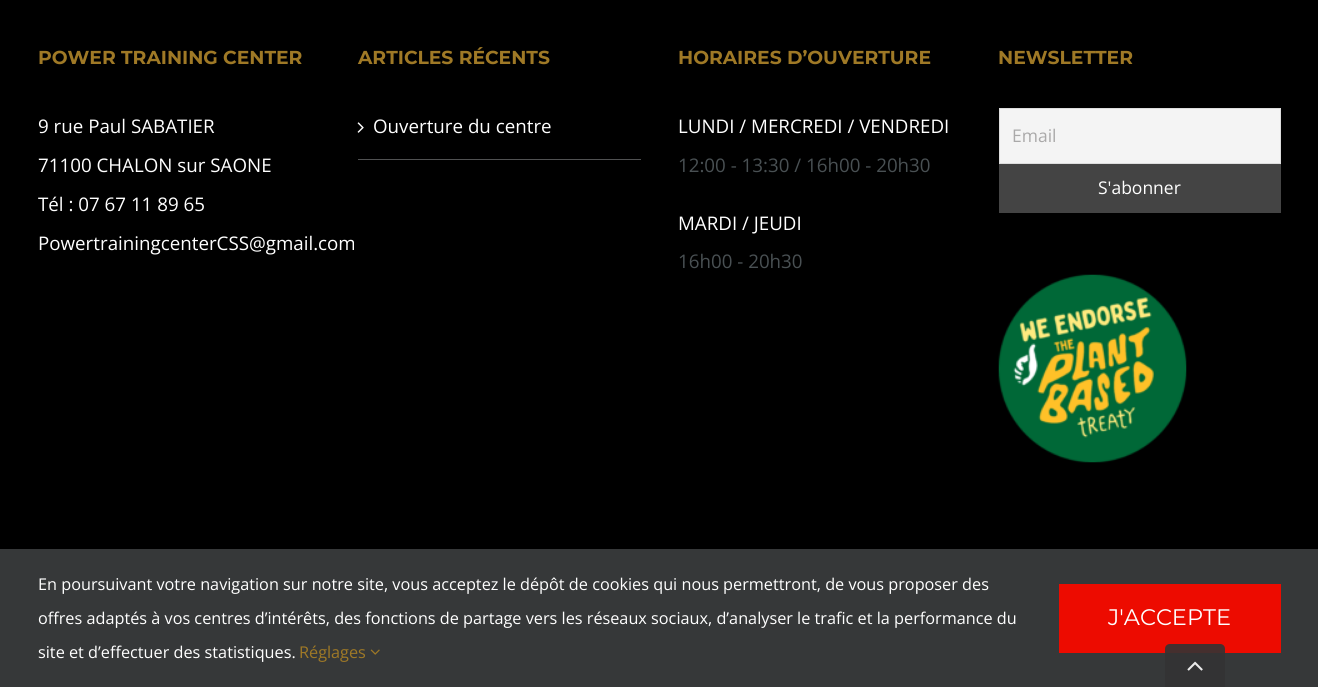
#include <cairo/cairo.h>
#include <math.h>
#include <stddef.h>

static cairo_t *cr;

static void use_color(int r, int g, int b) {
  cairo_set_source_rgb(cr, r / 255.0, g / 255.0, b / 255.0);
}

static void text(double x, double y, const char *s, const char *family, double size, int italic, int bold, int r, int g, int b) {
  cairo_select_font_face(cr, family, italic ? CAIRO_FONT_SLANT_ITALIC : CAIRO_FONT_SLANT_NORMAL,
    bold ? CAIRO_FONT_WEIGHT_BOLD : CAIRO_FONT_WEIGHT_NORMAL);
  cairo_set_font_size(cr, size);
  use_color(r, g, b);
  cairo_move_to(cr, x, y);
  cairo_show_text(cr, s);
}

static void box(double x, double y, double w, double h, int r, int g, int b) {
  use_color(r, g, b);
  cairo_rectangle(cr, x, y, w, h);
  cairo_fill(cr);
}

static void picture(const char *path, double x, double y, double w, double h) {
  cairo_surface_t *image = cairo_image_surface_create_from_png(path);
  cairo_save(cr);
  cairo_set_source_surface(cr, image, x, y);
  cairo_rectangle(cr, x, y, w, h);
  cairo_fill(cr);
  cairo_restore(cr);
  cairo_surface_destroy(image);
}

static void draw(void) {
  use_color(0, 0, 0);
  cairo_paint(cr);
  box(358, 159, 283, 1, 80, 81, 82);
  picture("img_01.png", 357, 122, 7, 11);
  use_color(244, 244, 244);
  cairo_rectangle(cr, 999.5, 108.5, 281, 55);
  cairo_fill_preserve(cr);
  use_color(221, 221, 221);
  cairo_set_line_width(cr, 1);
  cairo_stroke(cr);
  box(999, 164, 282, 49, 68, 68, 68);
  picture("img_02.png", 998, 274, 189, 189);
  box(0, 549, 1318, 138, 54, 56, 57);
  picture("img_03.png", 370, 649, 10, 6);
  box(1059, 584, 222, 69, 237, 11, 0);
  cairo_set_source_rgba(cr, 0.2, 0.2, 0.2, 0.9);
  cairo_new_path(cr);
  cairo_move_to(cr, 1170, 644);
  cairo_line_to(cr, 1220, 644);
  cairo_curve_to(cr, 1223, 644, 1225, 646, 1225, 649);
  cairo_line_to(cr, 1225, 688);
  cairo_line_to(cr, 1165, 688);
  cairo_line_to(cr, 1165, 649);
  cairo_curve_to(cr, 1165, 646, 1167, 644, 1170, 644);
  cairo_close_path(cr);
  cairo_fill(cr);
  picture("img_04.png", 1187, 661, 16, 10);
  text(38, 64, "POWER TRAINING CENTER", "Montserrat", 18.75, 0, 1, 159, 121, 38);
  text(38, 133, "9 rue Paul SABATIER", "Open Sans", 18.75, 0, 0, 255, 255, 255);
  text(38, 172, "71100 CHALON sur SAONE", "Open Sans", 18.75, 0, 0, 255, 255, 255);
  text(38, 211, "Tél : 07 67 11 89 65", "Open Sans", 18.75, 0, 0, 255, 255, 255);
  text(38, 250, "PowertrainingcenterCSS@gmail.com", "Open Sans", 18.75, 0, 0, 255, 255, 255);
  text(358, 64, "ARTICLES RÉCENTS", "Montserrat", 18.75, 0, 1, 159, 121, 38);
  text(373, 133, "Ouverture du centre", "Open Sans", 18.75, 0, 0, 255, 255, 255);
  text(678, 64, "HORAIRES D’OUVERTURE", "Montserrat", 18.75, 0, 1, 159, 121, 38);
  text(678, 133, "LUNDI / MERCREDI / VENDREDI", "Open Sans", 18.75, 0, 0, 255, 255, 255);
  text(678, 172, "12:00 - 13:30 / 16h00 - 20h30", "Open Sans", 18.75, 0, 0, 73, 80, 83);
  text(678, 230, "MARDI / JEUDI", "Open Sans", 18.75, 0, 0, 255, 255, 255);
  text(678, 268, "16h00 - 20h30", "Open Sans", 18.75, 0, 0, 73, 80, 83);
  text(998, 64, "NEWSLETTER", "Montserrat", 18.75, 0, 1, 159, 121, 38);
  text(1012, 142, "Email", "Open Sans", 17.5, 0, 0, 170, 169, 169);
  text(1098, 194, "S'abonner", "Open Sans", 17.5, 0, 0, 255, 255, 255);
  text(38, 590, "En poursuivant votre navigation sur notre site, vous acceptez le dépôt de cookies qui nous permettront, de vous proposer des", "Open Sans", 16.25, 0, 0, 255, 255, 255);
  text(38, 624, "offres adaptés à vos centres d’intérêts, des fonctions de partage vers les réseaux sociaux, d’analyser le trafic et la performance du", "Open Sans", 16.25, 0, 0, 255, 255, 255);
  text(38, 658, "site et d’effectuer des statistiques.", "Open Sans", 16.25, 0, 0, 255, 255, 255);
  text(299, 658, "Réglages", "Open Sans", 16.25, 0, 0, 159, 121, 38);
  text(1108, 625, "J'ACCEPTE", "Montserrat", 22.5, 0, 0, 255, 255, 255);
}

int main(void) {
  cairo_surface_t *surface = cairo_image_surface_create(CAIRO_FORMAT_RGB24, 1318, 687);
  cr = cairo_create(surface);
  cairo_font_options_t *options = cairo_font_options_create();
  cairo_font_options_set_hint_metrics(options, CAIRO_HINT_METRICS_OFF);
  cairo_font_options_set_hint_style(options, CAIRO_HINT_STYLE_NONE);
  cairo_set_font_options(cr, options);
  cairo_set_miter_limit(cr, 4);
  draw();
  cairo_surface_write_to_png(surface, "out.png");
  cairo_font_options_destroy(options);
  cairo_destroy(cr);
  cairo_surface_destroy(surface);
  return 0;
}
